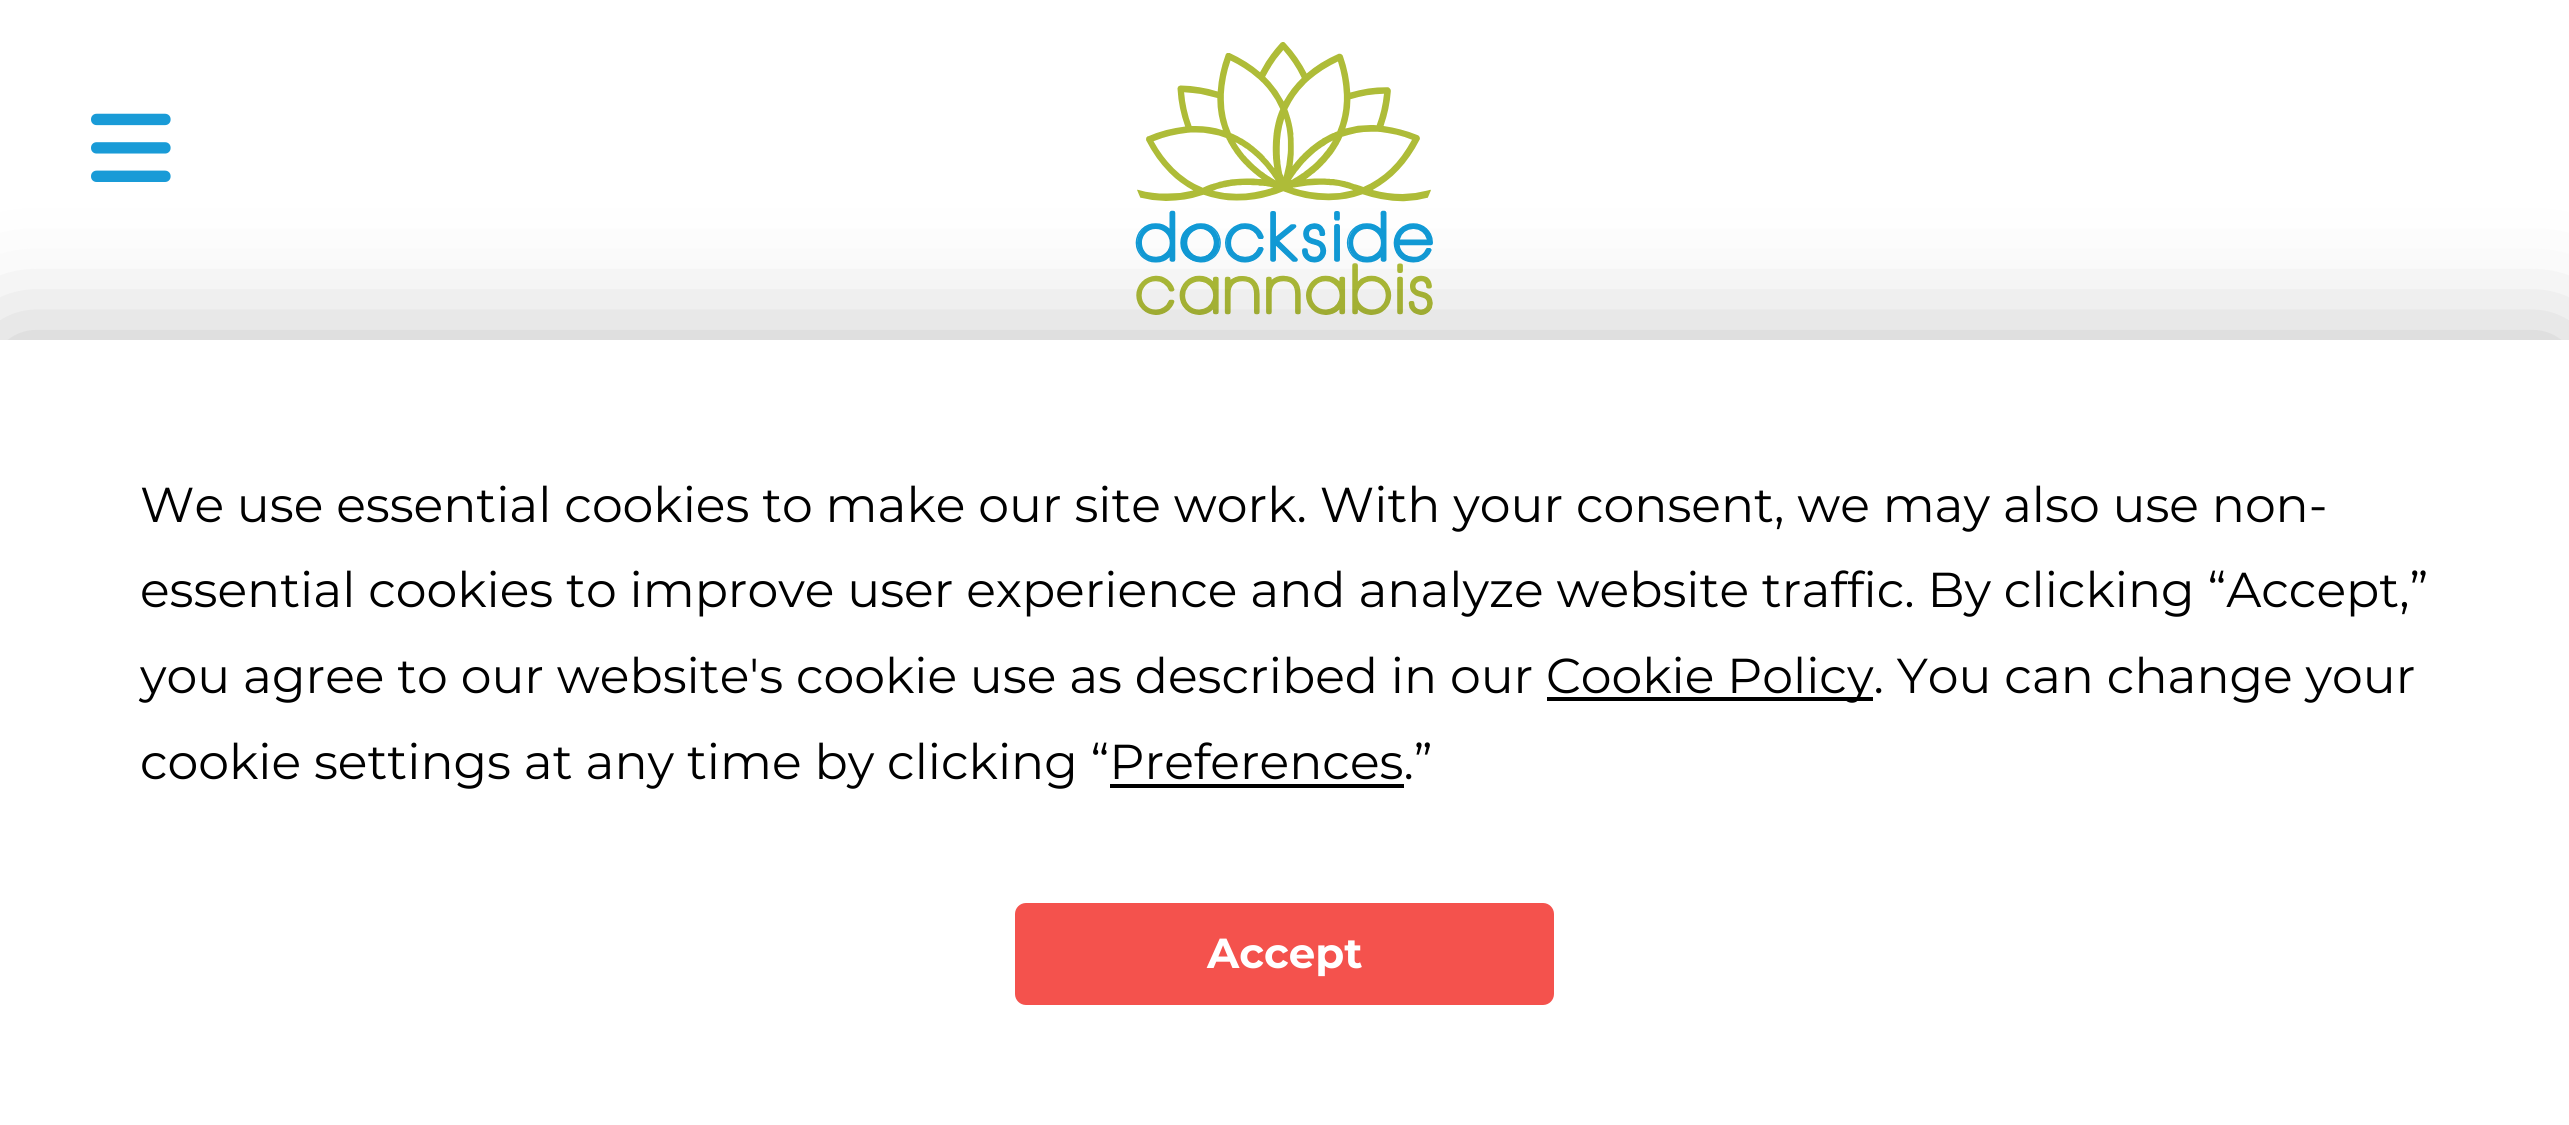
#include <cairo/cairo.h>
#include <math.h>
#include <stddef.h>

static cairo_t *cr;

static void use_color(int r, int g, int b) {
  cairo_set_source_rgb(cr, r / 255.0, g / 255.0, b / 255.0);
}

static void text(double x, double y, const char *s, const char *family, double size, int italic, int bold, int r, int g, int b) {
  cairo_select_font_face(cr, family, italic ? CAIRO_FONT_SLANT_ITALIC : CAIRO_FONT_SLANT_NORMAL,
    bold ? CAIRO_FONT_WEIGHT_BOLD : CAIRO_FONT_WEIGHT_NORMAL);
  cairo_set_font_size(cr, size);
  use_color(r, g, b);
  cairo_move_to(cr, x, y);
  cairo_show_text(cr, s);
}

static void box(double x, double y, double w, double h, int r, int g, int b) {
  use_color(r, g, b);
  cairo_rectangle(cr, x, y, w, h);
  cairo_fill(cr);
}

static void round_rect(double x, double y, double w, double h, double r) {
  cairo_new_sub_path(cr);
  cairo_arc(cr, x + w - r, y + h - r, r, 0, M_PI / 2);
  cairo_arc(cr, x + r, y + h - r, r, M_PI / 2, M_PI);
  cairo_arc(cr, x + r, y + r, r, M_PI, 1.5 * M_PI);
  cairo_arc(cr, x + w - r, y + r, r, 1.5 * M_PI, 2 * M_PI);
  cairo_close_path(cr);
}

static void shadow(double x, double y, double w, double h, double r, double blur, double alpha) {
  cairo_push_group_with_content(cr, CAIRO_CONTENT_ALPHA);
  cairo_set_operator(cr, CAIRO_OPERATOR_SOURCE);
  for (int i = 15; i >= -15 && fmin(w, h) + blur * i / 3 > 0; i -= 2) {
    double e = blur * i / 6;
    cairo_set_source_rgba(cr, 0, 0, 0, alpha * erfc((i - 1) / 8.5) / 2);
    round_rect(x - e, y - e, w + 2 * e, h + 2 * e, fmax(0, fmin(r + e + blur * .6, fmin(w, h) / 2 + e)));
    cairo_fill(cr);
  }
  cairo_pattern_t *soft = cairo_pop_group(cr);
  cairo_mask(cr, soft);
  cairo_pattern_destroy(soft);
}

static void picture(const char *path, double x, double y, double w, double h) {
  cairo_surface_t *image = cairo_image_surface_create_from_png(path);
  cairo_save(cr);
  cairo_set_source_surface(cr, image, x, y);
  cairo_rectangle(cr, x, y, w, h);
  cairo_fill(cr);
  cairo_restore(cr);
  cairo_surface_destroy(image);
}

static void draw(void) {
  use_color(255, 255, 255);
  cairo_paint(cr);
  picture("img_01.png", 91, 113, 80, 69);
  picture("img_02.png", 1135, 42, 298, 273);
  use_color(0, 0, 0);
  shadow(0, 340, 2569, 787, 0, 61, 0.25);
  box(0, 340, 2569, 785, 255, 255, 255);
  box(1547, 697, 326, 4, 0, 0, 0);
  box(1110, 784, 294, 4, 0, 0, 0);
  use_color(244, 82, 77);
  round_rect(1017, 905, 535, 98, 9);
  cairo_fill_preserve(cr);
  cairo_set_line_width(cr, 4);
  cairo_stroke(cr);
  text(140, 522, "We use essential cookies to make our site work. With your consent, we may also use non-", "Montserrat", 49, 0, 0, 0, 0, 0);
  text(140, 607, "essential cookies to improve user experience and analyze website traffic. By clicking “Accept,”", "Montserrat", 49, 0, 0, 0, 0, 0);
  text(140, 693, "you agree to our website's cookie use as described in our", "Montserrat", 49, 0, 0, 0, 0, 0);
  text(1546, 693, "Cookie Policy. You can change your", "Montserrat", 49, 0, 0, 0, 0, 0);
  text(140, 779, "cookie settings at any time by clicking “Preferences.”", "Montserrat", 49, 0, 0, 0, 0, 0);
  text(1207, 968, "Accept", "Montserrat", 42, 0, 1, 255, 255, 255);
}

int main(void) {
  cairo_surface_t *surface = cairo_image_surface_create(CAIRO_FORMAT_RGB24, 2569, 1125);
  cr = cairo_create(surface);
  cairo_font_options_t *options = cairo_font_options_create();
  cairo_font_options_set_hint_metrics(options, CAIRO_HINT_METRICS_OFF);
  cairo_font_options_set_hint_style(options, CAIRO_HINT_STYLE_NONE);
  cairo_set_font_options(cr, options);
  cairo_set_miter_limit(cr, 4);
  draw();
  cairo_surface_write_to_png(surface, "out.png");
  cairo_font_options_destroy(options);
  cairo_destroy(cr);
  cairo_surface_destroy(surface);
  return 0;
}
